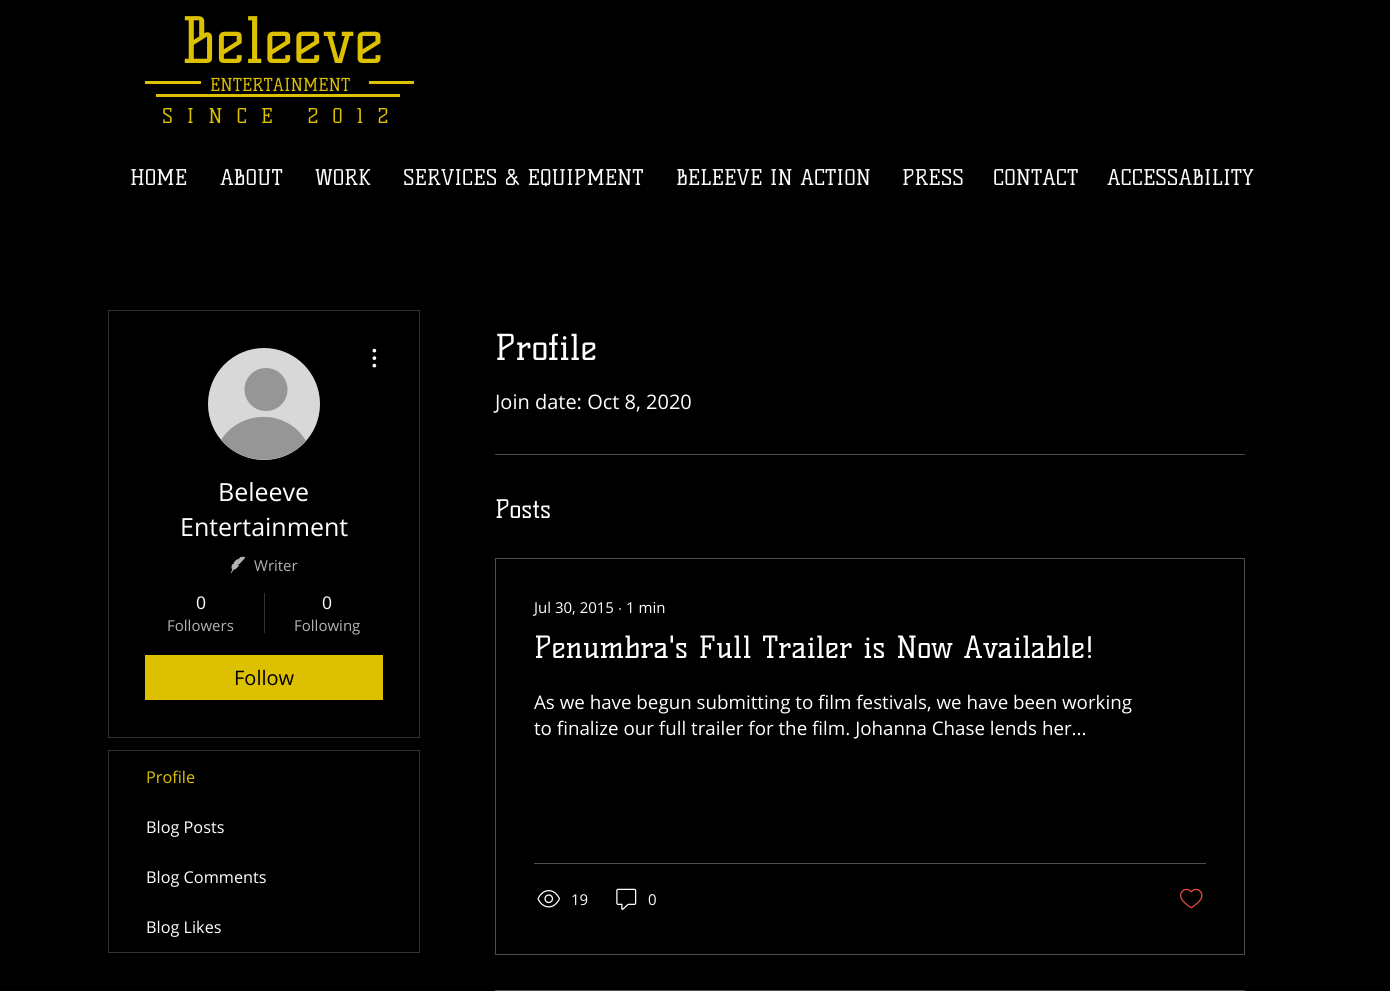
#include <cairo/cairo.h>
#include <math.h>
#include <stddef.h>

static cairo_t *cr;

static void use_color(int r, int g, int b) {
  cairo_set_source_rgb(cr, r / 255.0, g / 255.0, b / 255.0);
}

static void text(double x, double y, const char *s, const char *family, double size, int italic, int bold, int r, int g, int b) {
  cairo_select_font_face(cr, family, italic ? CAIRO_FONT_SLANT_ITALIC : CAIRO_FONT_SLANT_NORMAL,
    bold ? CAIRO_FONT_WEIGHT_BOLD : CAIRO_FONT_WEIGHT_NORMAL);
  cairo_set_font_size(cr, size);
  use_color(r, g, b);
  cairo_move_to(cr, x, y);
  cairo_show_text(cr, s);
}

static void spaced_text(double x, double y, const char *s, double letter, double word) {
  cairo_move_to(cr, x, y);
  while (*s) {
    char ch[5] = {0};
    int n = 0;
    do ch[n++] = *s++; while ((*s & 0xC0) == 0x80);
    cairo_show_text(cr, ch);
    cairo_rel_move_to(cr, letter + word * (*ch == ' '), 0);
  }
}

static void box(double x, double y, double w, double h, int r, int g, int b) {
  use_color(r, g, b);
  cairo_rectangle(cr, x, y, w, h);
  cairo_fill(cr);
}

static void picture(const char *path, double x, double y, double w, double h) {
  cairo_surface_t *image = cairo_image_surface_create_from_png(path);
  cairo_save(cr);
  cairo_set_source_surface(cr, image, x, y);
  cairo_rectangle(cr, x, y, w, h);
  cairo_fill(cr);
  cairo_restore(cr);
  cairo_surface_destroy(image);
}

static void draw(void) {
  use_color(0, 0, 0);
  cairo_paint(cr);
  box(145, 81, 56, 3, 221, 192, 0);
  box(369, 81, 45, 3, 221, 192, 0);
  box(156, 94, 244, 3, 221, 192, 0);
  cairo_rectangle(cr, 108.5, 310.5, 311, 427);
  use_color(51, 51, 51);
  cairo_set_line_width(cr, 1);
  cairo_stroke(cr);
  use_color(216, 216, 216);
  cairo_arc(cr, 264, 404, 56, 0, 2 * M_PI);
  cairo_fill(cr);
  use_color(150, 150, 150);
  cairo_arc(cr, 266, 389.5, 21.5, 0, 2 * M_PI);
  cairo_fill(cr);
  cairo_new_path(cr);
  cairo_move_to(cr, 306, 441);
  cairo_curve_to(cr, 284, 466, 243, 466, 221, 440);
  cairo_curve_to(cr, 241, 409, 287, 409, 306, 441);
  cairo_close_path(cr);
  cairo_fill(cr);
  picture("img_01.png", 372, 348, 5, 20);
  picture("img_02.png", 230, 556, 15, 18);
  box(264, 593, 1, 40, 51, 51, 51);
  box(145, 655, 238, 45, 221, 192, 0);
  cairo_rectangle(cr, 108.5, 750.5, 311, 202);
  use_color(51, 51, 51);
  cairo_stroke(cr);
  box(495, 454, 750, 1, 77, 77, 77);
  cairo_rectangle(cr, 495.5, 558.5, 749, 396);
  cairo_stroke(cr);
  box(534, 863, 672, 1, 77, 77, 77);
  picture("img_03.png", 537, 890, 23, 18);
  picture("img_04.png", 616, 888, 21, 22);
  picture("img_05.png", 1180, 888, 23, 21);
  cairo_rectangle(cr, 495.5, 990.5, 749, 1);
  cairo_stroke(cr);
  text(181, 63, "Beleeve", "Kelly Slab", 62.5, 0, 0, 221, 192, 0);
  text(210, 91, "ENTERTAINMENT", "Kelly Slab", 17.5, 0, 0, 221, 192, 0);
  cairo_set_font_size(cr, 20);
  spaced_text(162, 123, "SINCE 2012", 14, 0);
  text(130, 185, "HOME", "Kelly Slab", 21.25, 0, 0, 255, 255, 255);
  text(220, 185, "ABOUT", "Kelly Slab", 21.25, 0, 0, 255, 255, 255);
  text(315, 185, "WORK", "Kelly Slab", 21.25, 0, 0, 255, 255, 255);
  text(403, 185, "SERVICES & EQUIPMENT", "Kelly Slab", 21.25, 0, 0, 255, 255, 255);
  text(676, 185, "BELEEVE IN ACTION", "Kelly Slab", 21.25, 0, 0, 255, 255, 255);
  text(902, 185, "PRESS", "Kelly Slab", 21.25, 0, 0, 255, 255, 255);
  text(993, 185, "CONTACT", "Kelly Slab", 21.25, 0, 0, 255, 255, 255);
  text(1107, 185, "ACCESSABILITY", "Kelly Slab", 21.25, 0, 0, 255, 255, 255);
  text(218, 501, "Beleeve", "Open Sans", 25, 0, 0, 255, 255, 255);
  text(180, 536, "Entertainment", "Open Sans", 25, 0, 0, 255, 255, 255);
  text(254, 571, "Writer", "Open Sans", 15, 0, 0, 179, 179, 179);
  text(196, 609, "0", "Open Sans", 17.5, 0, 0, 255, 255, 255);
  text(167, 631, "Followers", "Open Sans", 15, 0, 0, 179, 179, 179);
  text(322, 609, "0", "Open Sans", 17.5, 0, 0, 255, 255, 255);
  text(294, 631, "Following", "Open Sans", 15, 0, 0, 179, 179, 179);
  text(234, 685, "Follow", "Open Sans", 20, 0, 0, 0, 0, 0);
  text(146, 783, "Profile", "Open Sans", 16.25, 0, 0, 221, 192, 0);
  text(146, 833, "Blog Posts", "Open Sans", 16.25, 0, 0, 255, 255, 255);
  text(146, 883, "Blog Comments", "Open Sans", 16.25, 0, 0, 255, 255, 255);
  text(146, 933, "Blog Likes", "Open Sans", 16.25, 0, 0, 255, 255, 255);
  text(495, 360, "Profile", "Kelly Slab", 35, 0, 0, 255, 255, 255);
  text(495, 409, "Join date: Oct 8, 2020", "Open Sans", 20, 0, 0, 255, 255, 255);
  text(495, 518, "Posts", "Kelly Slab", 25, 0, 0, 255, 255, 255);
  text(534, 613, "Jul 30, 2015", "Open Sans", 15, 0, 0, 255, 255, 255);
  text(618, 613, "∙", "Liberation Sans", 15, 0, 0, 255, 255, 255);
  text(626, 613, "1 min", "Open Sans", 15, 0, 0, 255, 255, 255);
  text(534, 658, "Penumbra's Full Trailer is Now Available!", "Kelly Slab", 30, 0, 0, 255, 255, 255);
  text(534, 709, "As we have begun submitting to film festivals, we have been working", "Open Sans", 18.75, 0, 0, 255, 255, 255);
  text(534, 735, "to finalize our full trailer for the film. Johanna Chase lends her...", "Open Sans", 18.75, 0, 0, 255, 255, 255);
  text(571, 905, "19", "Open Sans", 15, 0, 0, 255, 255, 255);
  text(648, 905, "0", "Open Sans", 15, 0, 0, 255, 255, 255);
}

int main(void) {
  cairo_surface_t *surface = cairo_image_surface_create(CAIRO_FORMAT_RGB24, 1390, 991);
  cr = cairo_create(surface);
  cairo_font_options_t *options = cairo_font_options_create();
  cairo_font_options_set_hint_metrics(options, CAIRO_HINT_METRICS_OFF);
  cairo_font_options_set_hint_style(options, CAIRO_HINT_STYLE_NONE);
  cairo_set_font_options(cr, options);
  cairo_set_miter_limit(cr, 4);
  draw();
  cairo_surface_write_to_png(surface, "out.png");
  cairo_font_options_destroy(options);
  cairo_destroy(cr);
  cairo_surface_destroy(surface);
  return 0;
}
